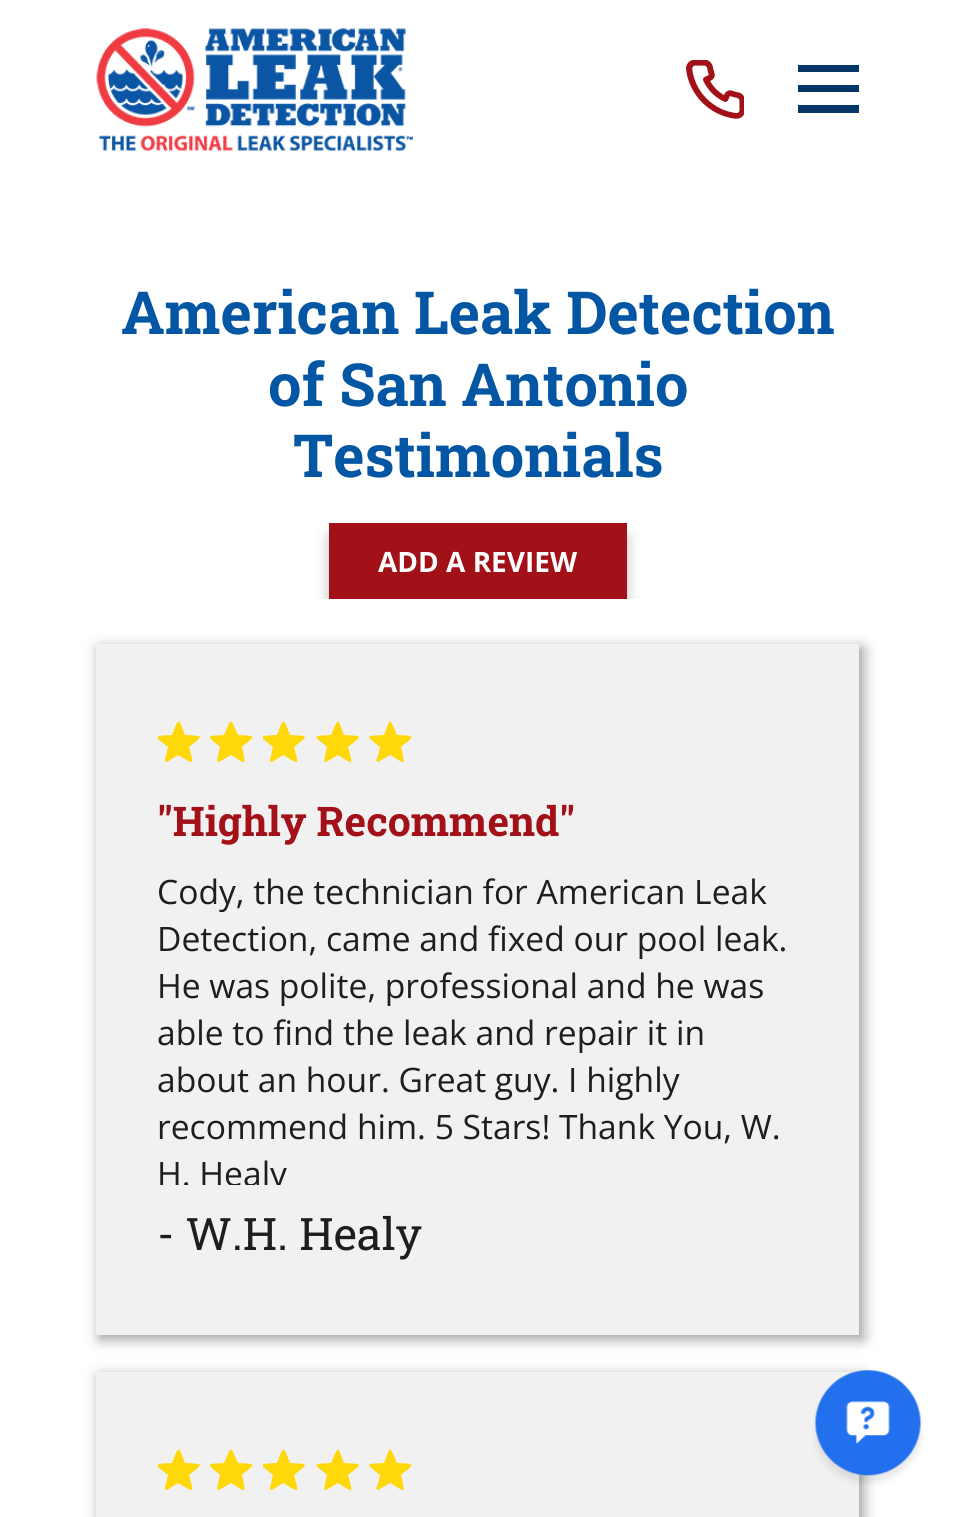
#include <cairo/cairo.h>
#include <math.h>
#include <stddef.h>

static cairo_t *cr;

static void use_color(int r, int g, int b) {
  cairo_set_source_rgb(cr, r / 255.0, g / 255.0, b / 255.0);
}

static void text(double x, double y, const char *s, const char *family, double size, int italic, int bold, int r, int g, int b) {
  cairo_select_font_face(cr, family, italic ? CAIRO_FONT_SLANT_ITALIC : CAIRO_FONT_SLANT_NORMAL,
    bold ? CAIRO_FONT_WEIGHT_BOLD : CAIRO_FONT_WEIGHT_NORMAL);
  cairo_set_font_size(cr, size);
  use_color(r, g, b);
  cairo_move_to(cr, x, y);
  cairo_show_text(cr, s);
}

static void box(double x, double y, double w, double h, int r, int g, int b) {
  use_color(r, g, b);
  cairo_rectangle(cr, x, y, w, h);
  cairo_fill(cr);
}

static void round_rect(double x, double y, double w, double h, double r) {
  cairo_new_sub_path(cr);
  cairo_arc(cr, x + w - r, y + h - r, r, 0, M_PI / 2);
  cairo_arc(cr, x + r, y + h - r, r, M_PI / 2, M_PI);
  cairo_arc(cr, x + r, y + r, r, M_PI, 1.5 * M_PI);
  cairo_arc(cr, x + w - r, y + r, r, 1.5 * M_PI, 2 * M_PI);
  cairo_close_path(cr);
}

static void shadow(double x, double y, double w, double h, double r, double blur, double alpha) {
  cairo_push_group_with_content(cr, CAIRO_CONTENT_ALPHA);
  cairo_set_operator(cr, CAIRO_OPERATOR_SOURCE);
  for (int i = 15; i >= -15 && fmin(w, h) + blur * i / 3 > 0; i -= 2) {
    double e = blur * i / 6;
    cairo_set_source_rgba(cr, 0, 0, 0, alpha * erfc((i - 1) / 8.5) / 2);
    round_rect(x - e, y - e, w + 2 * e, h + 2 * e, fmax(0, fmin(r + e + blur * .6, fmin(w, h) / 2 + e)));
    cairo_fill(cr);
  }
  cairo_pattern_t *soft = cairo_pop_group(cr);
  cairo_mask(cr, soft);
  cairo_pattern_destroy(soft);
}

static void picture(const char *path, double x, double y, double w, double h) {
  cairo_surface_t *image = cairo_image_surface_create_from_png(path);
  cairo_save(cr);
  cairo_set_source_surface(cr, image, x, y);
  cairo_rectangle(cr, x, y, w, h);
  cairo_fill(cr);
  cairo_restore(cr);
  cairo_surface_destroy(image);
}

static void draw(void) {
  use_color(255, 255, 255);
  cairo_paint(cr);
  picture("img_01.png", 96, 28, 317, 123);
  picture("img_02.png", 686, 60, 58, 59);
  cairo_save(cr);
  cairo_rectangle(cr, 798, 58, 61, 63);
  cairo_clip(cr);
  use_color(4, 55, 103);
  cairo_new_path(cr);
  cairo_move_to(cr, 798, 65);
  cairo_line_to(cr, 798, 72);
  cairo_line_to(cr, 860, 72);
  cairo_line_to(cr, 860, 65);
  cairo_close_path(cr);
  cairo_move_to(cr, 798, 85);
  cairo_line_to(cr, 798, 92);
  cairo_line_to(cr, 860, 92);
  cairo_line_to(cr, 860, 85);
  cairo_close_path(cr);
  cairo_move_to(cr, 798, 105);
  cairo_line_to(cr, 798, 113);
  cairo_line_to(cr, 860, 113);
  cairo_line_to(cr, 860, 105);
  cairo_close_path(cr);
  cairo_fill(cr);
  cairo_restore(cr);
  cairo_save(cr);
  cairo_rectangle(cr, 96, 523, 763, 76);
  cairo_clip(cr);
  use_color(0, 0, 0);
  shadow(329, 537, 298, 76, 0, 7, 0.25);
  cairo_restore(cr);
  box(329, 523, 298, 76, 162, 17, 23);
  use_color(0, 0, 0);
  shadow(100, 648, 763, 691, 0, 7, 0.4);
  box(96, 644, 763, 691, 241, 241, 241);
  cairo_save(cr);
  cairo_rectangle(cr, 158, 721, 42, 42);
  cairo_clip(cr);
  use_color(255, 216, 10);
  cairo_new_path(cr);
  cairo_move_to(cr, 167, 762);
  cairo_curve_to(cr, 163, 762, 166, 757, 166, 756);
  cairo_line_to(cr, 168, 747);
  cairo_curve_to(cr, 153, 735, 153, 736, 172, 735);
  cairo_curve_to(cr, 179, 717, 178, 717, 185, 735);
  cairo_curve_to(cr, 204, 736, 204, 735, 189, 747);
  cairo_curve_to(cr, 194, 766, 195, 765, 178, 755);
  cairo_close_path(cr);
  cairo_fill(cr);
  cairo_restore(cr);
  cairo_save(cr);
  cairo_rectangle(cr, 210, 721, 42, 42);
  cairo_clip(cr);
  use_color(255, 216, 10);
  cairo_new_path(cr);
  cairo_move_to(cr, 219, 762);
  cairo_curve_to(cr, 216, 762, 218, 757, 218, 756);
  cairo_line_to(cr, 220, 747);
  cairo_curve_to(cr, 206, 735, 205, 736, 224, 735);
  cairo_curve_to(cr, 232, 717, 230, 717, 238, 735);
  cairo_curve_to(cr, 257, 736, 256, 735, 242, 747);
  cairo_curve_to(cr, 246, 766, 247, 765, 231, 755);
  cairo_close_path(cr);
  cairo_fill(cr);
  cairo_restore(cr);
  cairo_save(cr);
  cairo_rectangle(cr, 263, 721, 42, 42);
  cairo_clip(cr);
  use_color(255, 216, 10);
  cairo_new_path(cr);
  cairo_move_to(cr, 272, 762);
  cairo_curve_to(cr, 268, 762, 271, 757, 271, 756);
  cairo_line_to(cr, 273, 747);
  cairo_curve_to(cr, 258, 735, 258, 736, 277, 735);
  cairo_curve_to(cr, 284, 717, 283, 717, 290, 735);
  cairo_curve_to(cr, 309, 736, 309, 735, 294, 747);
  cairo_curve_to(cr, 299, 766, 300, 765, 283, 755);
  cairo_close_path(cr);
  cairo_fill(cr);
  cairo_restore(cr);
  use_color(255, 216, 10);
  cairo_new_path(cr);
  cairo_move_to(cr, 326, 762);
  cairo_curve_to(cr, 323, 762, 325, 757, 325, 756);
  cairo_line_to(cr, 327, 747);
  cairo_curve_to(cr, 313, 735, 312, 736, 331, 735);
  cairo_curve_to(cr, 339, 717, 337, 717, 344, 735);
  cairo_curve_to(cr, 363, 736, 363, 735, 348, 747);
  cairo_curve_to(cr, 353, 766, 354, 765, 338, 755);
  cairo_close_path(cr);
  cairo_fill(cr);
  cairo_new_path(cr);
  cairo_move_to(cr, 378, 762);
  cairo_curve_to(cr, 375, 762, 377, 757, 378, 756);
  cairo_line_to(cr, 380, 747);
  cairo_curve_to(cr, 365, 735, 365, 736, 384, 735);
  cairo_curve_to(cr, 391, 717, 389, 717, 397, 735);
  cairo_curve_to(cr, 416, 736, 415, 735, 401, 747);
  cairo_curve_to(cr, 405, 766, 407, 765, 390, 755);
  cairo_close_path(cr);
  cairo_fill(cr);
  use_color(0, 0, 0);
  shadow(100, 1376, 763, 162, 0, 7, 0.4);
  box(96, 1372, 763, 145, 241, 241, 241);
  cairo_save(cr);
  cairo_rectangle(cr, 158, 1449, 42, 42);
  cairo_clip(cr);
  use_color(255, 216, 10);
  cairo_new_path(cr);
  cairo_move_to(cr, 167, 1490);
  cairo_curve_to(cr, 163, 1490, 166, 1485, 166, 1484);
  cairo_line_to(cr, 168, 1475);
  cairo_curve_to(cr, 153, 1463, 153, 1464, 172, 1463);
  cairo_curve_to(cr, 179, 1445, 178, 1445, 185, 1463);
  cairo_curve_to(cr, 204, 1464, 204, 1463, 189, 1475);
  cairo_curve_to(cr, 194, 1494, 195, 1493, 178, 1483);
  cairo_close_path(cr);
  cairo_fill(cr);
  cairo_restore(cr);
  cairo_save(cr);
  cairo_rectangle(cr, 210, 1449, 42, 42);
  cairo_clip(cr);
  use_color(255, 216, 10);
  cairo_new_path(cr);
  cairo_move_to(cr, 219, 1490);
  cairo_curve_to(cr, 216, 1490, 218, 1485, 218, 1484);
  cairo_line_to(cr, 220, 1475);
  cairo_curve_to(cr, 206, 1463, 205, 1464, 224, 1463);
  cairo_curve_to(cr, 232, 1445, 230, 1445, 238, 1463);
  cairo_curve_to(cr, 257, 1464, 256, 1463, 242, 1475);
  cairo_curve_to(cr, 246, 1494, 247, 1493, 231, 1483);
  cairo_close_path(cr);
  cairo_fill(cr);
  cairo_restore(cr);
  cairo_save(cr);
  cairo_rectangle(cr, 263, 1449, 42, 42);
  cairo_clip(cr);
  use_color(255, 216, 10);
  cairo_new_path(cr);
  cairo_move_to(cr, 272, 1490);
  cairo_curve_to(cr, 268, 1490, 271, 1485, 271, 1484);
  cairo_line_to(cr, 273, 1475);
  cairo_curve_to(cr, 258, 1463, 258, 1464, 277, 1463);
  cairo_curve_to(cr, 284, 1445, 283, 1445, 290, 1463);
  cairo_curve_to(cr, 309, 1464, 309, 1463, 294, 1475);
  cairo_curve_to(cr, 299, 1494, 300, 1493, 283, 1483);
  cairo_close_path(cr);
  cairo_fill(cr);
  cairo_restore(cr);
  use_color(255, 216, 10);
  cairo_new_path(cr);
  cairo_move_to(cr, 326, 1490);
  cairo_curve_to(cr, 323, 1490, 325, 1485, 325, 1484);
  cairo_line_to(cr, 327, 1475);
  cairo_curve_to(cr, 313, 1463, 312, 1464, 331, 1463);
  cairo_curve_to(cr, 339, 1445, 337, 1445, 344, 1463);
  cairo_curve_to(cr, 363, 1464, 363, 1463, 348, 1475);
  cairo_curve_to(cr, 353, 1494, 354, 1493, 338, 1483);
  cairo_close_path(cr);
  cairo_fill(cr);
  cairo_new_path(cr);
  cairo_move_to(cr, 378, 1490);
  cairo_curve_to(cr, 375, 1490, 377, 1485, 378, 1484);
  cairo_line_to(cr, 380, 1475);
  cairo_curve_to(cr, 365, 1463, 365, 1464, 384, 1463);
  cairo_curve_to(cr, 391, 1445, 389, 1445, 397, 1463);
  cairo_curve_to(cr, 416, 1464, 415, 1463, 401, 1475);
  cairo_curve_to(cr, 405, 1494, 407, 1493, 390, 1483);
  cairo_close_path(cr);
  cairo_fill(cr);
  picture("img_03.png", 813, 1370, 110, 115);
  text(121, 334, "American Leak Detection", "Roboto Slab", 59.4, 0, 1, 3, 86, 163);
  text(268, 406, "of San Antonio", "Roboto Slab", 59.4, 0, 1, 3, 86, 163);
  text(293, 477, "Testimonials", "Roboto Slab", 59.4, 0, 1, 3, 86, 163);
  text(378, 572, "ADD A REVIEW", "Open Sans", 28, 0, 1, 255, 255, 255);
  text(157, 836, "\"Highly Recommend\"", "Roboto Slab", 40.9, 0, 1, 162, 17, 23);
  text(157, 904, "Cody, the technician for American Leak", "Open Sans", 33.6, 0, 0, 30, 30, 30);
  text(157, 951, "Detection, came and fixed our pool leak.", "Open Sans", 33.6, 0, 0, 30, 30, 30);
  text(157, 998, "He was polite, professional and he was", "Open Sans", 33.6, 0, 0, 30, 30, 30);
  text(157, 1045, "able to find the leak and repair it in", "Open Sans", 33.6, 0, 0, 30, 30, 30);
  text(157, 1092, "about an hour. Great guy. I highly", "Open Sans", 33.6, 0, 0, 30, 30, 30);
  text(157, 1139, "recommend him. 5 Stars! Thank You, W.", "Open Sans", 33.6, 0, 0, 30, 30, 30);
  cairo_save(cr);
  cairo_rectangle(cr, 158, 868, 640, 317);
  cairo_clip(cr);
  text(157, 1186, "H. Healy", "Open Sans", 33.6, 0, 0, 30, 30, 30);
  cairo_restore(cr);
  text(157, 1250, "- W.H. Healy", "Roboto Slab", 44.75, 0, 0, 30, 30, 30);
}

int main(void) {
  cairo_surface_t *surface = cairo_image_surface_create(CAIRO_FORMAT_RGB24, 954, 1517);
  cr = cairo_create(surface);
  cairo_font_options_t *options = cairo_font_options_create();
  cairo_font_options_set_hint_metrics(options, CAIRO_HINT_METRICS_OFF);
  cairo_font_options_set_hint_style(options, CAIRO_HINT_STYLE_NONE);
  cairo_set_font_options(cr, options);
  cairo_set_miter_limit(cr, 4);
  draw();
  cairo_surface_write_to_png(surface, "out.png");
  cairo_font_options_destroy(options);
  cairo_destroy(cr);
  cairo_surface_destroy(surface);
  return 0;
}
